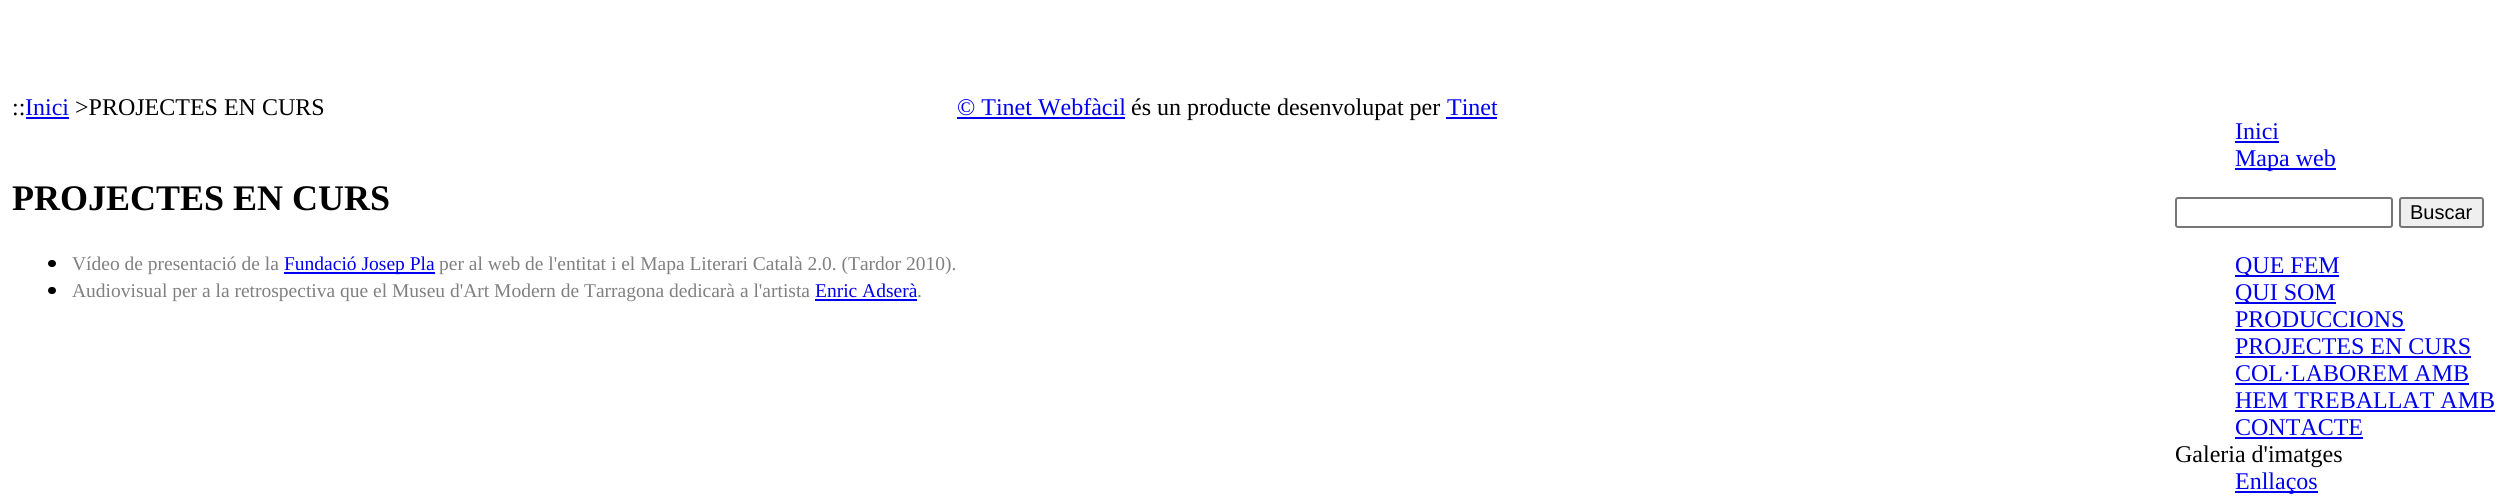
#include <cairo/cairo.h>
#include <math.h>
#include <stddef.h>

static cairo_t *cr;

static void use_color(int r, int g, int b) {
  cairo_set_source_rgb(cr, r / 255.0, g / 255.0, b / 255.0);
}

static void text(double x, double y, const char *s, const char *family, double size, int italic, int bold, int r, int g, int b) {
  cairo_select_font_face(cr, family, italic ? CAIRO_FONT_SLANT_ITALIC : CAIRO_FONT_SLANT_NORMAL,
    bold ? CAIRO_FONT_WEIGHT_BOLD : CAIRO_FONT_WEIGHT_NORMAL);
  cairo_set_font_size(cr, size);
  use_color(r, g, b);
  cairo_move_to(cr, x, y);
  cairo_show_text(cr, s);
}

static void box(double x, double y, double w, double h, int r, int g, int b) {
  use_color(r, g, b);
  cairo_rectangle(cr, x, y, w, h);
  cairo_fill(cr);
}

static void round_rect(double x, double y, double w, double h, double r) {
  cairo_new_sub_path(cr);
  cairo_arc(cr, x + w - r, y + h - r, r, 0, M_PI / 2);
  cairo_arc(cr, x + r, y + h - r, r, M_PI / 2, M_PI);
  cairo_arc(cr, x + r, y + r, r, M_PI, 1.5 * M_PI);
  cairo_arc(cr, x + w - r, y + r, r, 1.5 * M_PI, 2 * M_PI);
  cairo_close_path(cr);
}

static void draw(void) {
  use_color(255, 255, 255);
  cairo_paint(cr);
  box(26, 117, 43, 2, 0, 0, 238);
  use_color(0, 0, 0);
  round_rect(48, 260, 8, 7, 3.5);
  cairo_fill(cr);
  box(284, 272, 151, 2, 0, 0, 238);
  use_color(0, 0, 0);
  round_rect(48, 287, 8, 7, 3.5);
  cairo_fill(cr);
  box(815, 299, 102, 2, 0, 0, 238);
  box(957, 117, 168, 2, 0, 0, 238);
  box(1446, 117, 51, 2, 0, 0, 238);
  box(2235, 141, 44, 2, 0, 0, 238);
  box(2235, 168, 101, 2, 0, 0, 238);
  round_rect(2176, 198, 216, 29, 2);
  use_color(118, 118, 118);
  cairo_stroke(cr);
  use_color(239, 239, 239);
  round_rect(2400, 198, 83, 29, 2);
  cairo_fill_preserve(cr);
  use_color(118, 118, 118);
  cairo_stroke(cr);
  box(2235, 275, 104, 2, 0, 0, 238);
  box(2235, 302, 101, 2, 0, 0, 238);
  box(2235, 329, 170, 2, 0, 0, 238);
  box(2235, 356, 236, 2, 0, 0, 238);
  box(2235, 383, 234, 2, 0, 0, 238);
  box(2235, 410, 260, 2, 0, 0, 238);
  box(2235, 437, 128, 2, 0, 0, 238);
  box(2235, 491, 83, 2, 0, 0, 238);
  text(12, 115, "::", "Liberation Serif", 24, 0, 0, 0, 0, 0);
  text(25, 115, "Inici", "Liberation Serif", 24, 0, 0, 0, 0, 238);
  text(75, 115, ">PROJECTES EN CURS", "Liberation Serif", 24, 0, 0, 0, 0, 0);
  text(12, 210, "PROJECTES EN CURS", "Liberation Serif", 36, 0, 1, 0, 0, 0);
  text(72, 270, "Vídeo de presentació de la", "Liberation Serif", 19.5, 0, 0, 128, 128, 128);
  text(284, 270, "Fundació Josep Pla", "Liberation Serif", 19.5, 0, 0, 0, 0, 238);
  text(439, 270, "per al web de l'entitat i el Mapa Literari Català 2.0. (Tardor 2010).", "Liberation Serif", 19.5, 0, 0, 128, 128, 128);
  text(72, 297, "Audiovisual per a la retrospectiva que el Museu d'Art Modern de Tarragona dedicarà a l'artista", "Liberation Serif", 19.5, 0, 0, 128, 128, 128);
  text(815, 297, "Enric Adserà", "Liberation Serif", 19.5, 0, 0, 0, 0, 238);
  text(917, 297, ".", "Liberation Serif", 19.5, 0, 0, 128, 128, 128);
  text(957, 115, "© Tinet Webfàcil", "Liberation Serif", 24, 0, 0, 0, 0, 238);
  text(1131, 115, "és un producte desenvolupat per", "Liberation Serif", 24, 0, 0, 0, 0, 0);
  text(1447, 115, "Tinet", "Liberation Serif", 24, 0, 0, 0, 0, 238);
  text(2235, 139, "Inici", "Liberation Serif", 24, 0, 0, 0, 0, 238);
  text(2235, 166, "Mapa web", "Liberation Serif", 24, 0, 0, 0, 0, 238);
  text(2410, 219, "Buscar", "Liberation Sans", 20, 0, 0, 0, 0, 0);
  text(2235, 273, "QUE FEM", "Liberation Serif", 24, 0, 0, 0, 0, 238);
  text(2235, 300, "QUI SOM", "Liberation Serif", 24, 0, 0, 0, 0, 238);
  text(2235, 327, "PRODUCCIONS", "Liberation Serif", 24, 0, 0, 0, 0, 238);
  text(2235, 354, "PROJECTES EN CURS", "Liberation Serif", 24, 0, 0, 0, 0, 238);
  text(2235, 381, "COL·LABOREM AMB", "Liberation Serif", 24, 0, 0, 0, 0, 238);
  text(2235, 408, "HEM TREBALLAT AMB", "Liberation Serif", 24, 0, 0, 0, 0, 238);
  text(2235, 435, "CONTACTE", "Liberation Serif", 24, 0, 0, 0, 0, 238);
  text(2175, 462, "Galeria d'imatges", "Liberation Serif", 24, 0, 0, 0, 0, 0);
  text(2235, 489, "Enllaços", "Liberation Serif", 24, 0, 0, 0, 0, 238);
}

int main(void) {
  cairo_surface_t *surface = cairo_image_surface_create(CAIRO_FORMAT_RGB24, 2506, 498);
  cr = cairo_create(surface);
  cairo_font_options_t *options = cairo_font_options_create();
  cairo_font_options_set_hint_metrics(options, CAIRO_HINT_METRICS_OFF);
  cairo_font_options_set_hint_style(options, CAIRO_HINT_STYLE_NONE);
  cairo_set_font_options(cr, options);
  cairo_set_miter_limit(cr, 4);
  draw();
  cairo_surface_write_to_png(surface, "out.png");
  cairo_font_options_destroy(options);
  cairo_destroy(cr);
  cairo_surface_destroy(surface);
  return 0;
}
